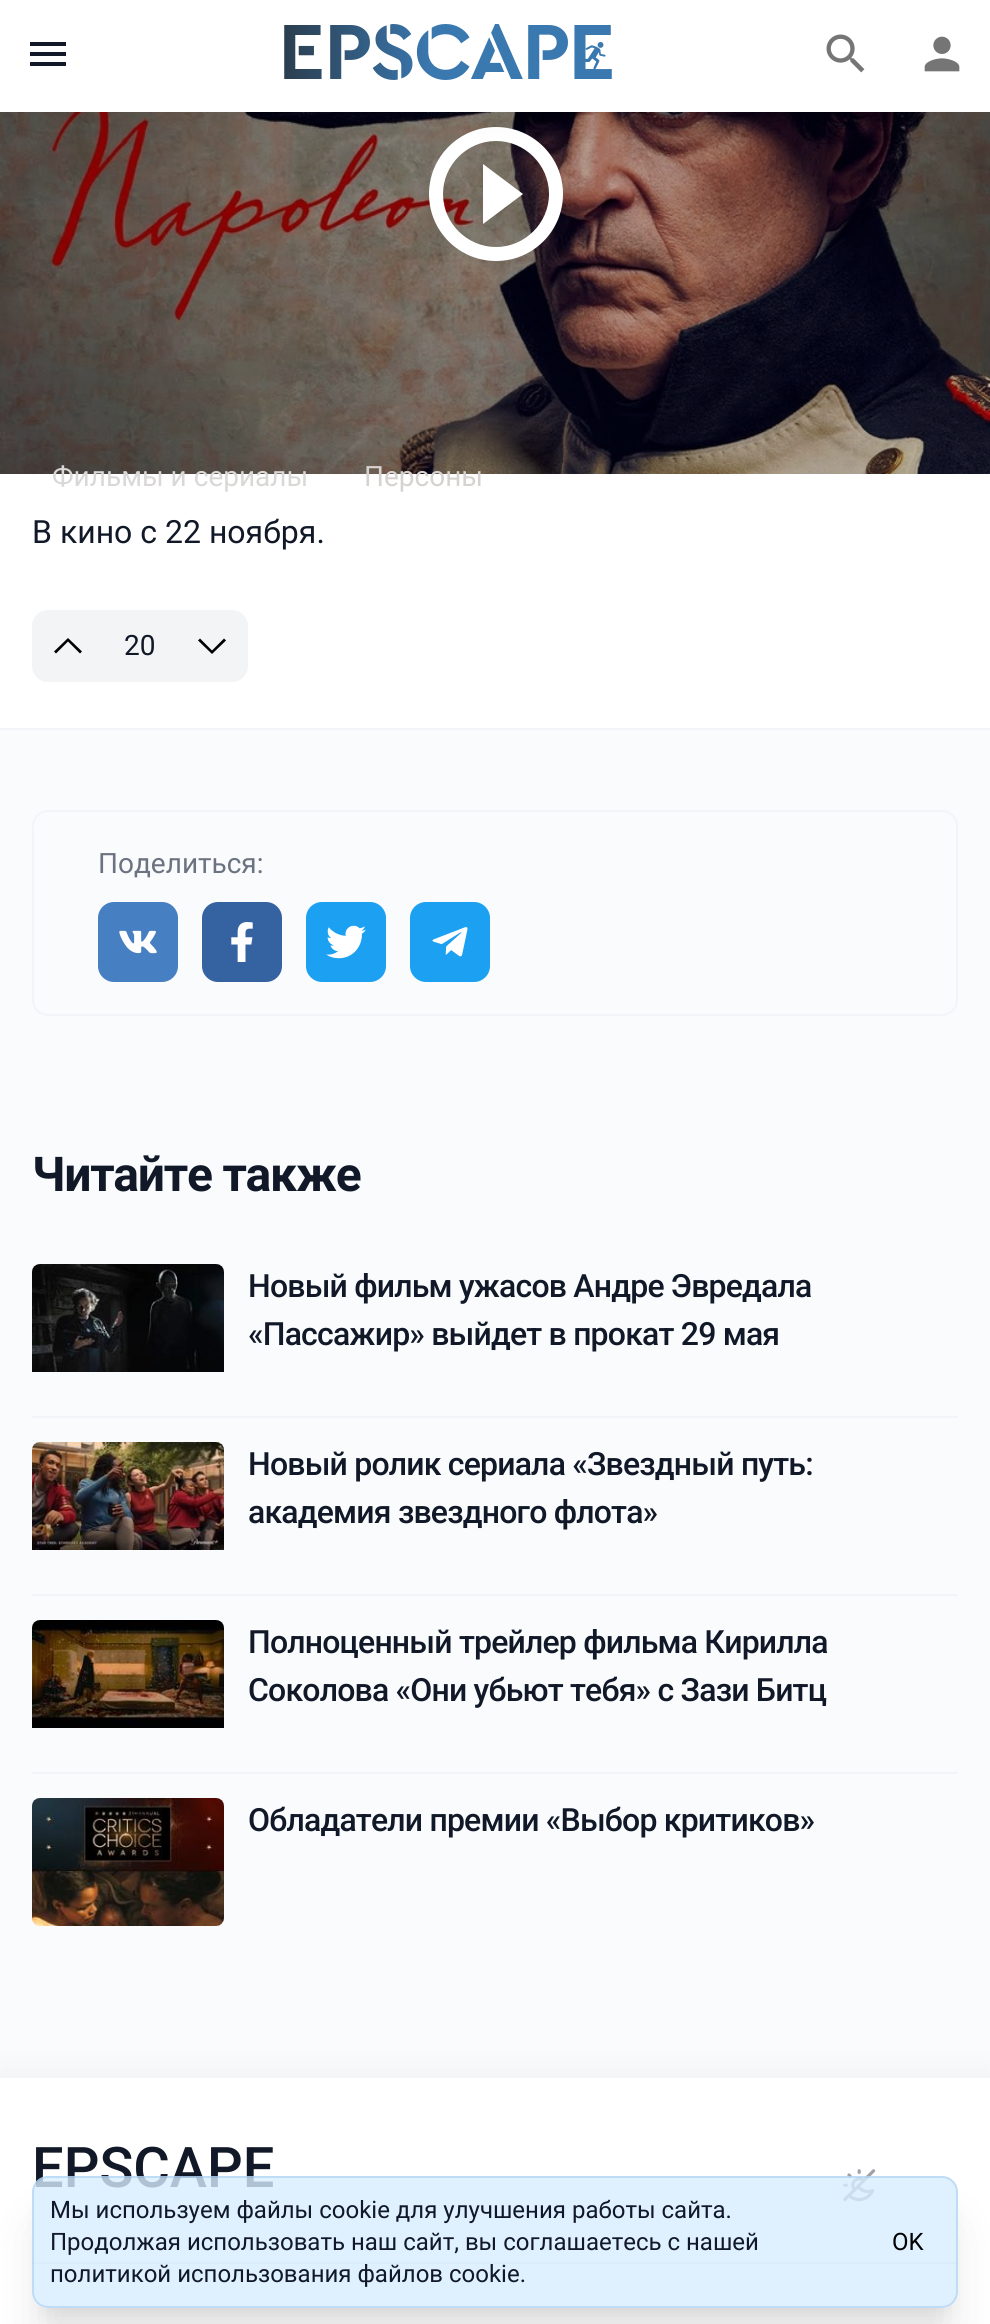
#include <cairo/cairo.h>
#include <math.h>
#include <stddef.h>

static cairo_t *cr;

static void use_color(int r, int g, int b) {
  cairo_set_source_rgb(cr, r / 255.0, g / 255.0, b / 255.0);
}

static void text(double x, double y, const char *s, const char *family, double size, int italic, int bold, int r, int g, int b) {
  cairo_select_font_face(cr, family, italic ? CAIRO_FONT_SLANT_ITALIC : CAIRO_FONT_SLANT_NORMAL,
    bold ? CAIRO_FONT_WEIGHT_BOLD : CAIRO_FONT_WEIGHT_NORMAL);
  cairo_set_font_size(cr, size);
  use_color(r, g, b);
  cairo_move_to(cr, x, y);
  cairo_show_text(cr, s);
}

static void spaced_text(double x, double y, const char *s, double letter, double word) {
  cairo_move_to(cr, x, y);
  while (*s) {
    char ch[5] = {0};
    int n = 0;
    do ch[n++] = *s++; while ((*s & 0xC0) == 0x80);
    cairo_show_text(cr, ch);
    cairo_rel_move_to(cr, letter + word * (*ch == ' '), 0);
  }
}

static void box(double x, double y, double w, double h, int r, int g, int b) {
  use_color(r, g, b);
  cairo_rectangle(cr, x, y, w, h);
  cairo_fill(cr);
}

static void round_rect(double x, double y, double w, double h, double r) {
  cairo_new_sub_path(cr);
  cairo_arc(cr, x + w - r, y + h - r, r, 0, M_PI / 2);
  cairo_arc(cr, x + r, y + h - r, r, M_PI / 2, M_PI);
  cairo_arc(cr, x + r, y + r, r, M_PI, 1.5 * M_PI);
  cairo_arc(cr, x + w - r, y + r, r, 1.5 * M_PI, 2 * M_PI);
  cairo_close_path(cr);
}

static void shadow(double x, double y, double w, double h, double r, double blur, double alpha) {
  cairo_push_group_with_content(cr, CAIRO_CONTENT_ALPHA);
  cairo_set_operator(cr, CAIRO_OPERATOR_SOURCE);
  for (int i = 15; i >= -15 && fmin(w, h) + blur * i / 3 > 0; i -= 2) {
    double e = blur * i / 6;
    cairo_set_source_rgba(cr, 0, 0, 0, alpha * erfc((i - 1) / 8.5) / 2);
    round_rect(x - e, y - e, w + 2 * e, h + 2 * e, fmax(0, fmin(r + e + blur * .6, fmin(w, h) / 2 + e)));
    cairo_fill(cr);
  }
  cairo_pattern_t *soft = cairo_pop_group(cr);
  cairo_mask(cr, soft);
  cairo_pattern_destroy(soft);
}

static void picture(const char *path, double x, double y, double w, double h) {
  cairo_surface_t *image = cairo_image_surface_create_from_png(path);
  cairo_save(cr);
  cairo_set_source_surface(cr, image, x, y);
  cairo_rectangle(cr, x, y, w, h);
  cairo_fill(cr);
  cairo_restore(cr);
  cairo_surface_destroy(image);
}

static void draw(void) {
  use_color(249, 251, 253);
  cairo_paint(cr);
  picture("img_04.png", 0, 112, 990, 362);
  use_color(255, 255, 255);
  cairo_new_path(cr);
  cairo_move_to(cr, 483, 224);
  cairo_line_to(cr, 523, 194);
  cairo_line_to(cr, 483, 164);
  cairo_close_path(cr);
  cairo_move_to(cr, 496, 127);
  cairo_curve_to(cr, 459, 127, 429, 157, 429, 194);
  cairo_curve_to(cr, 429, 231, 459, 261, 496, 261);
  cairo_curve_to(cr, 533, 261, 563, 231, 563, 194);
  cairo_curve_to(cr, 563, 157, 533, 127, 496, 127);
  cairo_close_path(cr);
  cairo_move_to(cr, 496, 247);
  cairo_curve_to(cr, 467, 247, 443, 223, 443, 194);
  cairo_curve_to(cr, 443, 165, 467, 141, 496, 141);
  cairo_curve_to(cr, 525, 141, 549, 165, 549, 194);
  cairo_curve_to(cr, 549, 223, 525, 247, 496, 247);
  cairo_close_path(cr);
  cairo_fill(cr);
  use_color(0, 0, 0);
  shadow(0, 8, 990, 112, 0, 16, 0.04);
  box(0, 0, 990, 112, 255, 255, 255);
  use_color(17, 24, 39);
  cairo_new_path(cr);
  cairo_move_to(cr, 30, 66);
  cairo_line_to(cr, 66, 66);
  cairo_line_to(cr, 66, 62);
  cairo_line_to(cr, 30, 62);
  cairo_close_path(cr);
  cairo_move_to(cr, 30, 56);
  cairo_line_to(cr, 66, 56);
  cairo_line_to(cr, 66, 52);
  cairo_line_to(cr, 30, 52);
  cairo_close_path(cr);
  cairo_move_to(cr, 30, 42);
  cairo_line_to(cr, 30, 46);
  cairo_line_to(cr, 66, 46);
  cairo_line_to(cr, 66, 42);
  cairo_close_path(cr);
  cairo_fill(cr);
  picture("img_01.png", 284, 24, 328, 56);
  picture("img_02.png", 826, 34, 39, 39);
  picture("img_03.png", 924, 36, 36, 36);
  box(0, 474, 990, 254, 255, 255, 255);
  box(0, 728, 990, 2, 241, 245, 249);
  use_color(243, 244, 246);
  round_rect(32, 610, 216, 72, 16);
  cairo_fill(cr);
  use_color(0, 0, 0);
  cairo_new_path(cr);
  cairo_move_to(cr, 68, 638);
  cairo_line_to(cr, 82, 651.5);
  cairo_line_to(cr, 80, 653.5);
  cairo_line_to(cr, 68, 641.5);
  cairo_line_to(cr, 56, 653.5);
  cairo_line_to(cr, 54, 651.5);
  cairo_close_path(cr);
  cairo_fill(cr);
  cairo_new_path(cr);
  cairo_move_to(cr, 212, 654);
  cairo_line_to(cr, 198, 640.5);
  cairo_line_to(cr, 200, 638.5);
  cairo_line_to(cr, 212, 650.5);
  cairo_line_to(cr, 224, 638.5);
  cairo_line_to(cr, 226, 640.5);
  cairo_close_path(cr);
  cairo_fill(cr);
  round_rect(33, 811, 924, 204, 15);
  use_color(241, 245, 249);
  cairo_stroke(cr);
  use_color(70, 128, 194);
  round_rect(98, 902, 80, 80, 16);
  cairo_fill(cr);
  picture("img_05.png", 119, 930, 38, 24);
  use_color(53, 99, 161);
  round_rect(202, 902, 80, 80, 16);
  cairo_fill(cr);
  picture("img_06.png", 231, 922, 22, 40);
  use_color(28, 160, 242);
  round_rect(306, 902, 80, 80, 16);
  cairo_fill(cr);
  picture("img_07.png", 326, 925, 40, 34);
  round_rect(410, 902, 80, 80, 16);
  cairo_fill(cr);
  picture("img_08.png", 432, 927, 36, 30);
  box(32, 1416, 926, 2, 241, 245, 249);
  picture("img_09.png", 32, 1264, 192, 108);
  box(32, 1594, 926, 2, 241, 245, 249);
  picture("img_10.png", 32, 1442, 192, 108);
  box(32, 1772, 926, 2, 241, 245, 249);
  picture("img_11.png", 32, 1620, 192, 108);
  picture("img_12.png", 32, 1798, 192, 128);
  use_color(0, 0, 0);
  shadow(0, 2070, 990, 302, 0, 16, 0.04);
  box(0, 2078, 990, 246, 255, 255, 255);
  picture("img_13.png", 843, 2169, 33, 33);
  box(32, 2262, 926, 2, 235, 235, 235);
  cairo_save(cr);
  cairo_set_fill_rule(cr, CAIRO_FILL_RULE_EVEN_ODD);
  cairo_new_path(cr);
  cairo_move_to(cr, 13, 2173);
  cairo_line_to(cr, 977, 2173);
  cairo_line_to(cr, 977, 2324);
  cairo_line_to(cr, 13, 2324);
  cairo_close_path(cr);
  cairo_move_to(cr, 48, 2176);
  cairo_line_to(cr, 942, 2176);
  cairo_curve_to(cr, 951, 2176, 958, 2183, 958, 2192);
  cairo_line_to(cr, 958, 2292);
  cairo_curve_to(cr, 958, 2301, 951, 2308, 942, 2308);
  cairo_line_to(cr, 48, 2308);
  cairo_curve_to(cr, 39, 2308, 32, 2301, 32, 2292);
  cairo_line_to(cr, 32, 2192);
  cairo_curve_to(cr, 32, 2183, 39, 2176, 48, 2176);
  cairo_close_path(cr);
  cairo_clip(cr);
  use_color(0, 0, 0);
  shadow(44, 2204, 902, 108, 4, 10, 0.1);
  cairo_restore(cr);
  cairo_save(cr);
  cairo_set_fill_rule(cr, CAIRO_FILL_RULE_EVEN_ODD);
  cairo_new_path(cr);
  cairo_move_to(cr, 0, 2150);
  cairo_line_to(cr, 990, 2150);
  cairo_line_to(cr, 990, 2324);
  cairo_line_to(cr, 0, 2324);
  cairo_close_path(cr);
  cairo_move_to(cr, 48, 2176);
  cairo_line_to(cr, 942, 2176);
  cairo_curve_to(cr, 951, 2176, 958, 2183, 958, 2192);
  cairo_line_to(cr, 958, 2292);
  cairo_curve_to(cr, 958, 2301, 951, 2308, 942, 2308);
  cairo_line_to(cr, 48, 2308);
  cairo_curve_to(cr, 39, 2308, 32, 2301, 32, 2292);
  cairo_line_to(cr, 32, 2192);
  cairo_curve_to(cr, 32, 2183, 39, 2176, 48, 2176);
  cairo_close_path(cr);
  cairo_clip(cr);
  use_color(0, 0, 0);
  shadow(42, 2226, 906, 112, 6, 25, 0.1);
  cairo_restore(cr);
  text(52, 486, "Фильмы и сериалы", "Roboto", 28, 0, 0, 218, 216, 215);
  text(364, 486, "Персоны", "Roboto", 28, 0, 0, 213, 210, 208);
  text(32, 543, "В кино с 22 ноября.", "Roboto", 32, 0, 0, 17, 24, 39);
  text(124, 655, "20", "Roboto", 28, 0, 0, 17, 24, 39);
  text(98, 873, "Поделиться:", "Roboto", 28, 0, 0, 107, 114, 128);
  cairo_select_font_face(cr, "Roboto", CAIRO_FONT_SLANT_NORMAL, CAIRO_FONT_WEIGHT_BOLD);
  cairo_set_font_size(cr, 48);
  use_color(17, 24, 39);
  spaced_text(32, 1191, "Читайте также", -1.25, 0);
  cairo_select_font_face(cr, "Roboto Medium", CAIRO_FONT_SLANT_NORMAL, CAIRO_FONT_WEIGHT_NORMAL);
  cairo_set_font_size(cr, 32);
  spaced_text(248, 1297, "Новый фильм ужасов Андре Эвредала", -0.8, 0);
  spaced_text(248, 1345, "«Пассажир» выйдет в прокат 29 мая", -0.8, 0);
  spaced_text(248, 1475, "Новый ролик сериала «Звездный путь:", -0.8, 0);
  spaced_text(248, 1523, "академия звездного флота»", -0.8, 0);
  spaced_text(248, 1653, "Полноценный трейлер фильма Кирилла", -0.8, 0);
  spaced_text(248, 1701, "Соколова «Они убьют тебя» с Зази Битц", -0.8, 0);
  spaced_text(248, 1831, "Обладатели премии «Выбор критиков»", -0.8, 0);
  text(32, 2187, "EPSCAPE", "Roboto Medium", 56, 0, 0, 17, 24, 39);
  cairo_set_source_rgba(cr, 0.843, 0.925, 1, 0.8);
  round_rect(32, 2176, 926, 132, 16);
  cairo_fill(cr);
  round_rect(33, 2177, 924, 130, 15);
  cairo_set_source_rgba(cr, 0.263, 0.561, 0.835, 0.2);
  cairo_stroke(cr);
  text(50, 2218, "Мы используем файлы cookie для улучшения работы сайта.", "Roboto", 24, 0, 0, 17, 24, 39);
  text(50, 2250, "Продолжая использовать наш сайт, вы соглашаетесь с нашей", "Roboto", 24, 0, 0, 17, 24, 39);
  text(50, 2282, "политикой использования файлов cookie.", "Roboto", 24, 0, 0, 17, 24, 39);
  text(892, 2250, "OK", "Roboto", 24, 0, 0, 0, 0, 0);
}

int main(void) {
  cairo_surface_t *surface = cairo_image_surface_create(CAIRO_FORMAT_RGB24, 990, 2324);
  cr = cairo_create(surface);
  cairo_font_options_t *options = cairo_font_options_create();
  cairo_font_options_set_hint_metrics(options, CAIRO_HINT_METRICS_OFF);
  cairo_font_options_set_hint_style(options, CAIRO_HINT_STYLE_NONE);
  cairo_set_font_options(cr, options);
  cairo_set_miter_limit(cr, 4);
  draw();
  cairo_surface_write_to_png(surface, "out.png");
  cairo_font_options_destroy(options);
  cairo_destroy(cr);
  cairo_surface_destroy(surface);
  return 0;
}
